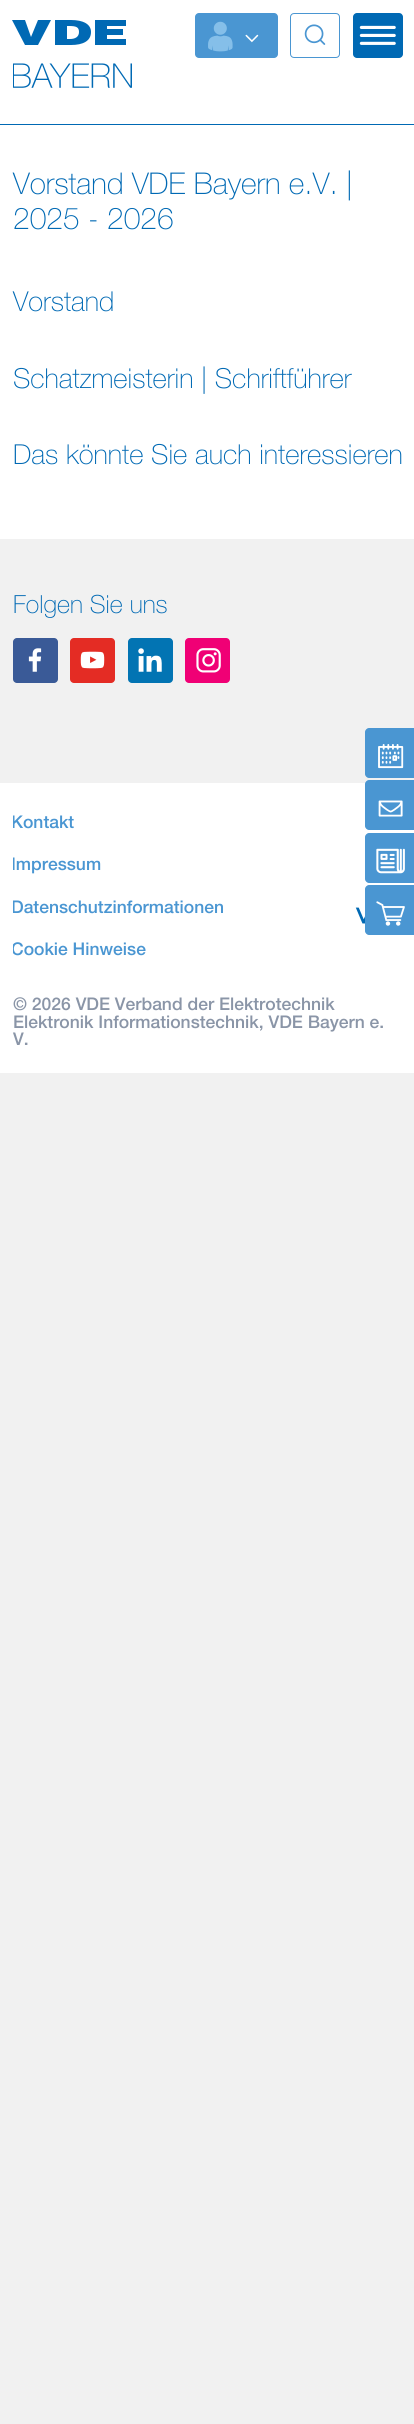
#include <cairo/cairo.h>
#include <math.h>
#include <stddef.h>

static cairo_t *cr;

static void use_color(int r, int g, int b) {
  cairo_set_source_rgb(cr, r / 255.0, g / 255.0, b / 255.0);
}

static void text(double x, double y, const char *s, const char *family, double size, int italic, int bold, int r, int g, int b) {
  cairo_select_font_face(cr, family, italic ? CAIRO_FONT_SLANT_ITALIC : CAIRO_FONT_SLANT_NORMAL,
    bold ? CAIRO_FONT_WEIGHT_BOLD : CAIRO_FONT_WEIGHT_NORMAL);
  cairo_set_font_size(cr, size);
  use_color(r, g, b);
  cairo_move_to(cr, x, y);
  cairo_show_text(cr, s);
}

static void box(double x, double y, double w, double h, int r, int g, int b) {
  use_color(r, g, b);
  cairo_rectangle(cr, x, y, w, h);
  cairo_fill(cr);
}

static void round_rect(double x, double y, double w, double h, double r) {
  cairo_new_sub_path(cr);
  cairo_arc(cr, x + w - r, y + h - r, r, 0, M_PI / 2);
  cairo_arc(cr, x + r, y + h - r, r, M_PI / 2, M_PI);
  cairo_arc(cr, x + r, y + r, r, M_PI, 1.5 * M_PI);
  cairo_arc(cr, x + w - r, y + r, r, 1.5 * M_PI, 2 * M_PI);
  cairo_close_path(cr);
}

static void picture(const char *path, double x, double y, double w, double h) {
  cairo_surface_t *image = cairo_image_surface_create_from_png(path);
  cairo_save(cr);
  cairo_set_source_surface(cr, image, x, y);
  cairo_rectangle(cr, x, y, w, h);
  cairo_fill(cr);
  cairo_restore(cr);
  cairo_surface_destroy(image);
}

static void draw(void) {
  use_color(241, 241, 241);
  cairo_paint(cr);
  box(0, 0, 414, 1073, 255, 255, 255);
  box(0, 124, 414, 1, 0, 105, 180);
  cairo_new_path(cr);
  cairo_move_to(cr, 12, 20);
  cairo_line_to(cr, 25, 20);
  cairo_line_to(cr, 31, 37);
  cairo_line_to(cr, 38, 20);
  cairo_line_to(cr, 51, 20);
  cairo_line_to(cr, 38, 45);
  cairo_line_to(cr, 25, 45);
  cairo_close_path(cr);
  cairo_move_to(cr, 67, 26);
  cairo_line_to(cr, 67, 39);
  cairo_line_to(cr, 70, 39);
  cairo_curve_to(cr, 75, 39, 79, 37, 79, 32);
  cairo_curve_to(cr, 79, 27, 76, 26, 69, 26);
  cairo_close_path(cr);
  cairo_move_to(cr, 71, 45);
  cairo_line_to(cr, 55, 45);
  cairo_line_to(cr, 55, 20);
  cairo_line_to(cr, 71, 20);
  cairo_curve_to(cr, 83, 20, 91, 24, 91, 32);
  cairo_curve_to(cr, 91, 41, 83, 45, 71, 45);
  cairo_close_path(cr);
  cairo_move_to(cr, 126, 45);
  cairo_line_to(cr, 126, 39);
  cairo_line_to(cr, 107, 39);
  cairo_line_to(cr, 107, 35);
  cairo_line_to(cr, 123, 35);
  cairo_line_to(cr, 123, 29);
  cairo_line_to(cr, 107, 29);
  cairo_line_to(cr, 107, 26);
  cairo_line_to(cr, 126, 26);
  cairo_line_to(cr, 126, 20);
  cairo_line_to(cr, 95, 20);
  cairo_line_to(cr, 95, 45);
  cairo_close_path(cr);
  cairo_fill(cr);
  picture("img_01.png", 13, 63, 119, 25);
  use_color(74, 150, 210);
  round_rect(195, 13, 83, 45, 4);
  cairo_fill(cr);
  picture("img_02.png", 208, 21, 25, 31);
  picture("img_03.png", 245, 34, 14, 9);
  round_rect(290.5, 13.5, 49, 44, 3.5);
  cairo_set_line_width(cr, 1);
  cairo_stroke(cr);
  picture("img_04.png", 304, 24, 22, 21);
  use_color(0, 105, 180);
  round_rect(353, 13, 50, 45, 4);
  cairo_fill(cr);
  picture("img_05.png", 359, 25, 37, 20);
  box(0, 539, 414, 244, 241, 241, 241);
  use_color(74, 150, 210);
  cairo_new_path(cr);
  cairo_move_to(cr, 369, 728);
  cairo_line_to(cr, 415, 728);
  cairo_line_to(cr, 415, 778);
  cairo_line_to(cr, 369, 778);
  cairo_curve_to(cr, 367, 778, 365, 776, 365, 774);
  cairo_line_to(cr, 365, 732);
  cairo_curve_to(cr, 365, 730, 367, 728, 369, 728);
  cairo_close_path(cr);
  cairo_fill(cr);
  picture("img_06.png", 378, 744, 26, 25);
  cairo_new_path(cr);
  cairo_move_to(cr, 369, 780);
  cairo_line_to(cr, 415, 780);
  cairo_line_to(cr, 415, 830);
  cairo_line_to(cr, 369, 830);
  cairo_curve_to(cr, 367, 830, 365, 828, 365, 826);
  cairo_line_to(cr, 365, 784);
  cairo_curve_to(cr, 365, 782, 367, 780, 369, 780);
  cairo_close_path(cr);
  cairo_fill(cr);
  picture("img_07.png", 378, 800, 25, 17);
  cairo_new_path(cr);
  cairo_move_to(cr, 369, 833);
  cairo_line_to(cr, 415, 833);
  cairo_line_to(cr, 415, 883);
  cairo_line_to(cr, 369, 883);
  cairo_curve_to(cr, 367, 883, 365, 881, 365, 879);
  cairo_line_to(cr, 365, 837);
  cairo_curve_to(cr, 365, 835, 367, 833, 369, 833);
  cairo_close_path(cr);
  cairo_fill(cr);
  picture("img_08.png", 376, 848, 29, 26);
  cairo_new_path(cr);
  cairo_move_to(cr, 369, 885);
  cairo_line_to(cr, 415, 885);
  cairo_line_to(cr, 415, 935);
  cairo_line_to(cr, 369, 935);
  cairo_curve_to(cr, 367, 935, 365, 933, 365, 931);
  cairo_line_to(cr, 365, 889);
  cairo_curve_to(cr, 365, 887, 367, 885, 369, 885);
  cairo_close_path(cr);
  cairo_fill(cr);
  picture("img_09.png", 376, 901, 29, 25);
  use_color(58, 90, 151);
  round_rect(13, 638, 45, 45, 4);
  cairo_fill(cr);
  picture("img_10.png", 28, 648, 14, 24);
  use_color(228, 44, 36);
  round_rect(70, 638, 45, 45, 4);
  cairo_fill(cr);
  picture("img_11.png", 80, 651, 25, 18);
  use_color(2, 116, 179);
  round_rect(128, 638, 45, 45, 4);
  cairo_fill(cr);
  picture("img_12.png", 138, 648, 24, 24);
  use_color(240, 0, 117);
  round_rect(185, 638, 45, 45, 4);
  cairo_fill(cr);
  picture("img_13.png", 196, 648, 25, 25);
  picture("img_14.png", 355, 907, 10, 17);
  text(13, 194, "Vorstand VDE Bayern e.V. |", "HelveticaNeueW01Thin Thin", 30, 0, 0, 0, 105, 180);
  text(13, 229, "2025 - 2026", "HelveticaNeueW01Thin Thin", 30, 0, 0, 0, 105, 180);
  text(13, 311, "Vorstand", "HelveticaNeueW01Thin Thin", 27.5, 0, 0, 0, 105, 180);
  text(13, 388, "Schatzmeisterin | Schriftführer", "HelveticaNeueW01Thin Thin", 27.5, 0, 0, 0, 105, 180);
  text(13, 464, "Das könnte Sie auch interessieren", "HelveticaNeueW01Thin Thin", 27.5, 0, 0, 0, 105, 180);
  text(13, 613, "Folgen Sie uns", "HelveticaNeueW01Thin Thin", 25, 0, 0, 0, 105, 180);
  cairo_save(cr);
  cairo_rectangle(cr, 13, 808, 390, 168);
  cairo_clip(cr);
  text(11, 828, "Kontakt", "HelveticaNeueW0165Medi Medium", 17.5, 0, 0, 74, 150, 210);
  text(11, 870, "Impressum", "HelveticaNeueW0165Medi Medium", 17.5, 0, 0, 74, 150, 210);
  text(11, 913, "Datenschutzinformationen", "HelveticaNeueW0165Medi Medium", 17.5, 0, 0, 74, 150, 210);
  text(11, 955, "Cookie Hinweise", "HelveticaNeueW0165Medi Medium", 17.5, 0, 0, 74, 150, 210);
  cairo_restore(cr);
  text(13, 1010, "© 2026 VDE Verband der Elektrotechnik", "HelveticaNeueW0165Medi Medium", 17.5, 0, 0, 138, 149, 167);
  text(13, 1028, "Elektronik Informationstechnik, VDE Bayern e.", "HelveticaNeueW0165Medi Medium", 17.5, 0, 0, 138, 149, 167);
  text(13, 1045, "V.", "HelveticaNeueW0165Medi Medium", 17.5, 0, 0, 138, 149, 167);
}

int main(void) {
  cairo_surface_t *surface = cairo_image_surface_create(CAIRO_FORMAT_RGB24, 414, 2424);
  cr = cairo_create(surface);
  cairo_font_options_t *options = cairo_font_options_create();
  cairo_font_options_set_hint_metrics(options, CAIRO_HINT_METRICS_OFF);
  cairo_font_options_set_hint_style(options, CAIRO_HINT_STYLE_NONE);
  cairo_set_font_options(cr, options);
  cairo_set_miter_limit(cr, 4);
  draw();
  cairo_surface_write_to_png(surface, "out.png");
  cairo_font_options_destroy(options);
  cairo_destroy(cr);
  cairo_surface_destroy(surface);
  return 0;
}
